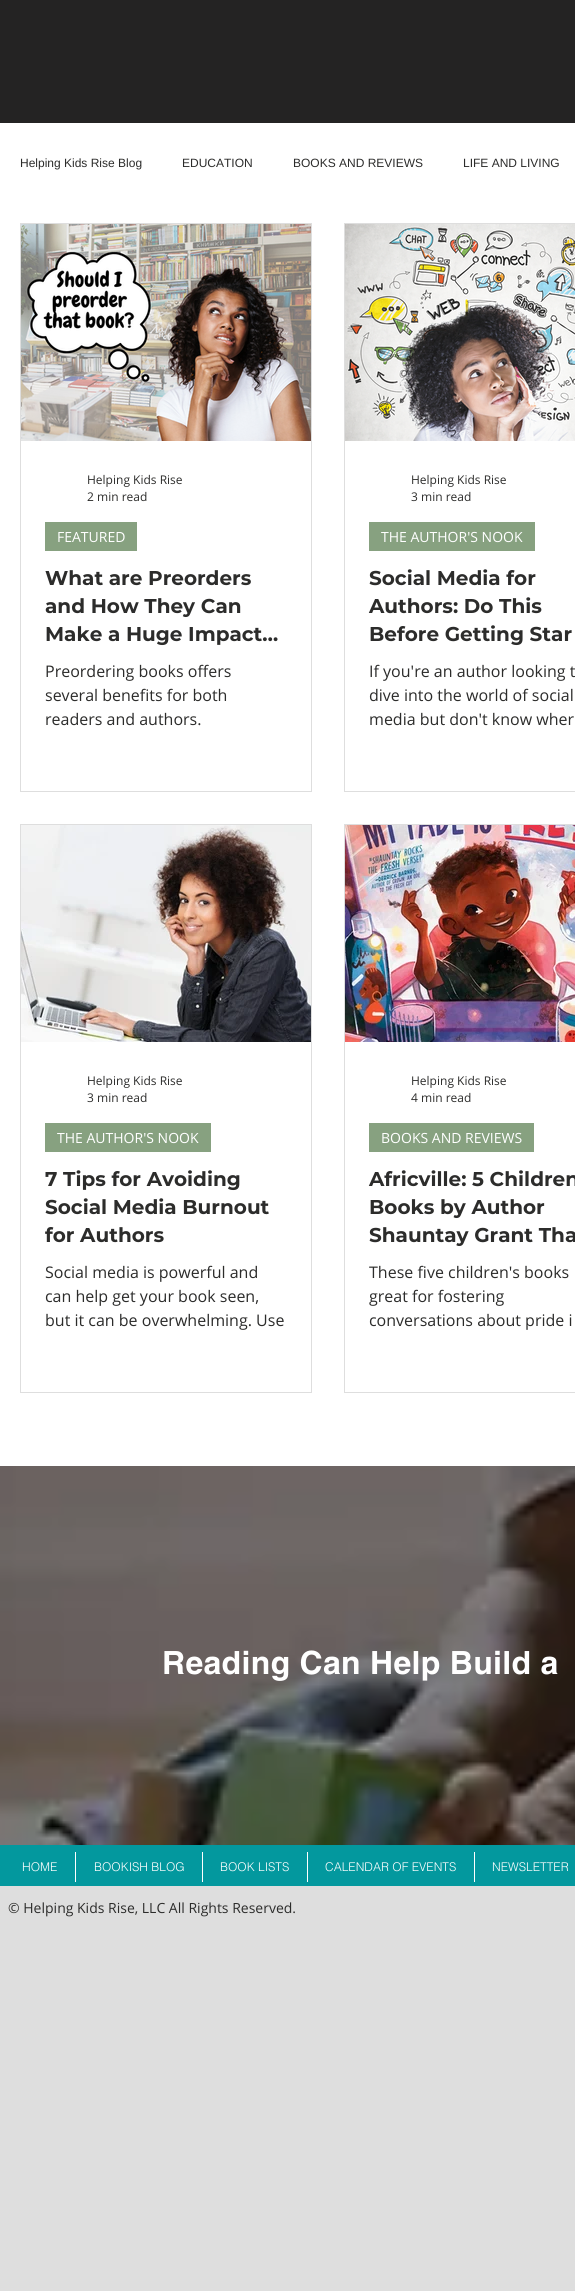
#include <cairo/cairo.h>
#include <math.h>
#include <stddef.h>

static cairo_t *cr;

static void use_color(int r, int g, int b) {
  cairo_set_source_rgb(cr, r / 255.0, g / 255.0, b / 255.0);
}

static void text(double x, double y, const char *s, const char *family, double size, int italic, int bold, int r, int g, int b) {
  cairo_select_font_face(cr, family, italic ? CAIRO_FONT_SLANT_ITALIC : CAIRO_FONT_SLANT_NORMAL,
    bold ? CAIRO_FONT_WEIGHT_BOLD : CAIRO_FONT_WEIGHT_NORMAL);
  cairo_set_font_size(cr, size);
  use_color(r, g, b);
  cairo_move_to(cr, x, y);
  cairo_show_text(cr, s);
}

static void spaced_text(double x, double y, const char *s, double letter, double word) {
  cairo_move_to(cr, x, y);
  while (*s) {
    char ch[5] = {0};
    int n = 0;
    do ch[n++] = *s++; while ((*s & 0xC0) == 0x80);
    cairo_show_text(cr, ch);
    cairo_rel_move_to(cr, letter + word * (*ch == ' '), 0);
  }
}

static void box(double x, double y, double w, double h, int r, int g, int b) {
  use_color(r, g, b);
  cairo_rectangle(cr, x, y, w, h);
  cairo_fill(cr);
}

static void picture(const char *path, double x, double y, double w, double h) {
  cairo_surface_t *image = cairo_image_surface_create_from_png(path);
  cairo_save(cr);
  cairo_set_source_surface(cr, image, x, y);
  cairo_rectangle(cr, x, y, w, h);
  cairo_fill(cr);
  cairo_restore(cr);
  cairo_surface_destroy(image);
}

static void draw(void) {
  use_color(255, 255, 255);
  cairo_paint(cr);
  box(0, 0, 575, 123, 36, 35, 35);
  cairo_rectangle(cr, 20.5, 223.5, 291, 568);
  use_color(222, 222, 222);
  cairo_set_line_width(cr, 1);
  cairo_stroke(cr);
  picture("img_01.png", 21, 224, 290, 217);
  box(45, 522, 92, 29, 135, 161, 128);
  cairo_rectangle(cr, 344.5, 223.5, 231, 568);
  use_color(222, 222, 222);
  cairo_stroke(cr);
  picture("img_02.png", 345, 224, 230, 217);
  box(369, 522, 166, 29, 135, 161, 128);
  cairo_rectangle(cr, 20.5, 824.5, 291, 568);
  use_color(222, 222, 222);
  cairo_stroke(cr);
  picture("img_03.png", 21, 825, 290, 217);
  box(45, 1123, 166, 29, 135, 161, 128);
  cairo_rectangle(cr, 344.5, 824.5, 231, 568);
  use_color(222, 222, 222);
  cairo_stroke(cr);
  picture("img_04.png", 345, 825, 230, 217);
  box(369, 1123, 165, 29, 135, 161, 128);
  picture("img_05.png", 0, 1466, 575, 379);
  box(0, 1845, 575, 41, 3, 152, 158);
  box(75, 1852, 1, 30, 255, 255, 255);
  box(202, 1852, 1, 30, 255, 255, 255);
  box(307, 1852, 1, 30, 255, 255, 255);
  box(474, 1852, 1, 30, 255, 255, 255);
  box(0, 1886, 575, 405, 222, 222, 222);
  text(20, 167, "Helping Kids Rise Blog", "Liberation Sans", 12, 0, 0, 44, 44, 43);
  text(182, 167, "EDUCATION", "Liberation Sans", 12, 0, 0, 44, 44, 43);
  text(293, 167, "BOOKS AND REVIEWS", "Liberation Sans", 12, 0, 0, 44, 44, 43);
  text(463, 167, "LIFE AND LIVING", "Liberation Sans", 12, 0, 0, 44, 44, 43);
  text(87, 484, "Helping Kids Rise", "Open Sans", 12, 0, 0, 44, 44, 43);
  text(87, 501, "2 min read", "Open Sans", 12, 0, 0, 44, 44, 43);
  text(57, 542, "FEATURED", "Open Sans", 14, 0, 0, 255, 255, 255);
  text(45, 585, "What are Preorders", "Montserrat", 20, 0, 1, 44, 44, 43);
  text(45, 613, "and How They Can", "Montserrat", 20, 0, 1, 44, 44, 43);
  text(45, 641, "Make a Huge Impact…", "Montserrat", 20, 0, 1, 44, 44, 43);
  text(45, 677, "Preordering books offers", "Open Sans", 16, 0, 0, 44, 44, 43);
  text(45, 701, "several benefits for both", "Open Sans", 16, 0, 0, 44, 44, 43);
  text(45, 725, "readers and authors.", "Open Sans", 16, 0, 0, 44, 44, 43);
  text(411, 484, "Helping Kids Rise", "Open Sans", 12, 0, 0, 44, 44, 43);
  text(411, 501, "3 min read", "Open Sans", 12, 0, 0, 44, 44, 43);
  text(381, 542, "THE AUTHOR'S NOOK", "Open Sans", 14, 0, 0, 255, 255, 255);
  text(369, 585, "Social Media for", "Montserrat", 20, 0, 1, 44, 44, 43);
  text(369, 613, "Authors: Do This", "Montserrat", 20, 0, 1, 44, 44, 43);
  text(369, 641, "Before Getting Star", "Montserrat", 20, 0, 1, 44, 44, 43);
  text(369, 677, "If you're an author looking t", "Open Sans", 16, 0, 0, 44, 44, 43);
  text(369, 701, "dive into the world of social", "Open Sans", 16, 0, 0, 44, 44, 43);
  text(369, 725, "media but don't know wher", "Open Sans", 16, 0, 0, 44, 44, 43);
  text(87, 1085, "Helping Kids Rise", "Open Sans", 12, 0, 0, 44, 44, 43);
  text(87, 1102, "3 min read", "Open Sans", 12, 0, 0, 44, 44, 43);
  text(57, 1143, "THE AUTHOR'S NOOK", "Open Sans", 14, 0, 0, 255, 255, 255);
  text(45, 1186, "7 Tips for Avoiding", "Montserrat", 20, 0, 1, 44, 44, 43);
  text(45, 1214, "Social Media Burnout", "Montserrat", 20, 0, 1, 44, 44, 43);
  text(45, 1242, "for Authors", "Montserrat", 20, 0, 1, 44, 44, 43);
  text(45, 1278, "Social media is powerful and", "Open Sans", 16, 0, 0, 44, 44, 43);
  text(45, 1302, "can help get your book seen,", "Open Sans", 16, 0, 0, 44, 44, 43);
  text(45, 1326, "but it can be overwhelming. Use", "Open Sans", 16, 0, 0, 44, 44, 43);
  text(411, 1085, "Helping Kids Rise", "Open Sans", 12, 0, 0, 44, 44, 43);
  text(411, 1102, "4 min read", "Open Sans", 12, 0, 0, 44, 44, 43);
  text(381, 1143, "BOOKS AND REVIEWS", "Open Sans", 14, 0, 0, 255, 255, 255);
  text(369, 1186, "Africville: 5 Children", "Montserrat", 20, 0, 1, 44, 44, 43);
  text(369, 1214, "Books by Author", "Montserrat", 20, 0, 1, 44, 44, 43);
  text(369, 1242, "Shauntay Grant Tha", "Montserrat", 20, 0, 1, 44, 44, 43);
  text(369, 1278, "These five children's books", "Open Sans", 16, 0, 0, 44, 44, 43);
  text(369, 1302, "great for fostering", "Open Sans", 16, 0, 0, 44, 44, 43);
  text(369, 1326, "conversations about pride i", "Open Sans", 16, 0, 0, 44, 44, 43);
  cairo_select_font_face(cr, "helvetica", CAIRO_FONT_SLANT_NORMAL, CAIRO_FONT_WEIGHT_BOLD);
  cairo_set_font_size(cr, 32);
  use_color(255, 255, 255);
  spaced_text(162, 1674, "Reading Can Help Build a", 0.3, 0);
  text(22, 1871, "HOME", "helvetica Light", 12, 0, 0, 255, 255, 255);
  text(94, 1871, "BOOKISH BLOG", "helvetica Light", 12, 0, 0, 255, 255, 255);
  text(220, 1871, "BOOK LISTS", "helvetica Light", 12, 0, 0, 255, 255, 255);
  text(325, 1871, "CALENDAR OF EVENTS", "helvetica Light", 12, 0, 0, 255, 255, 255);
  text(492, 1871, "NEWSLETTER", "helvetica Light", 12, 0, 0, 255, 255, 255);
  text(8, 1913, "© Helping Kids Rise, LLC All Rights Reserved.", "Open Sans", 14, 0, 0, 44, 44, 43);
}

int main(void) {
  cairo_surface_t *surface = cairo_image_surface_create(CAIRO_FORMAT_RGB24, 575, 2291);
  cr = cairo_create(surface);
  cairo_font_options_t *options = cairo_font_options_create();
  cairo_font_options_set_hint_metrics(options, CAIRO_HINT_METRICS_OFF);
  cairo_font_options_set_hint_style(options, CAIRO_HINT_STYLE_NONE);
  cairo_set_font_options(cr, options);
  cairo_set_miter_limit(cr, 4);
  draw();
  cairo_surface_write_to_png(surface, "out.png");
  cairo_font_options_destroy(options);
  cairo_destroy(cr);
  cairo_surface_destroy(surface);
  return 0;
}
